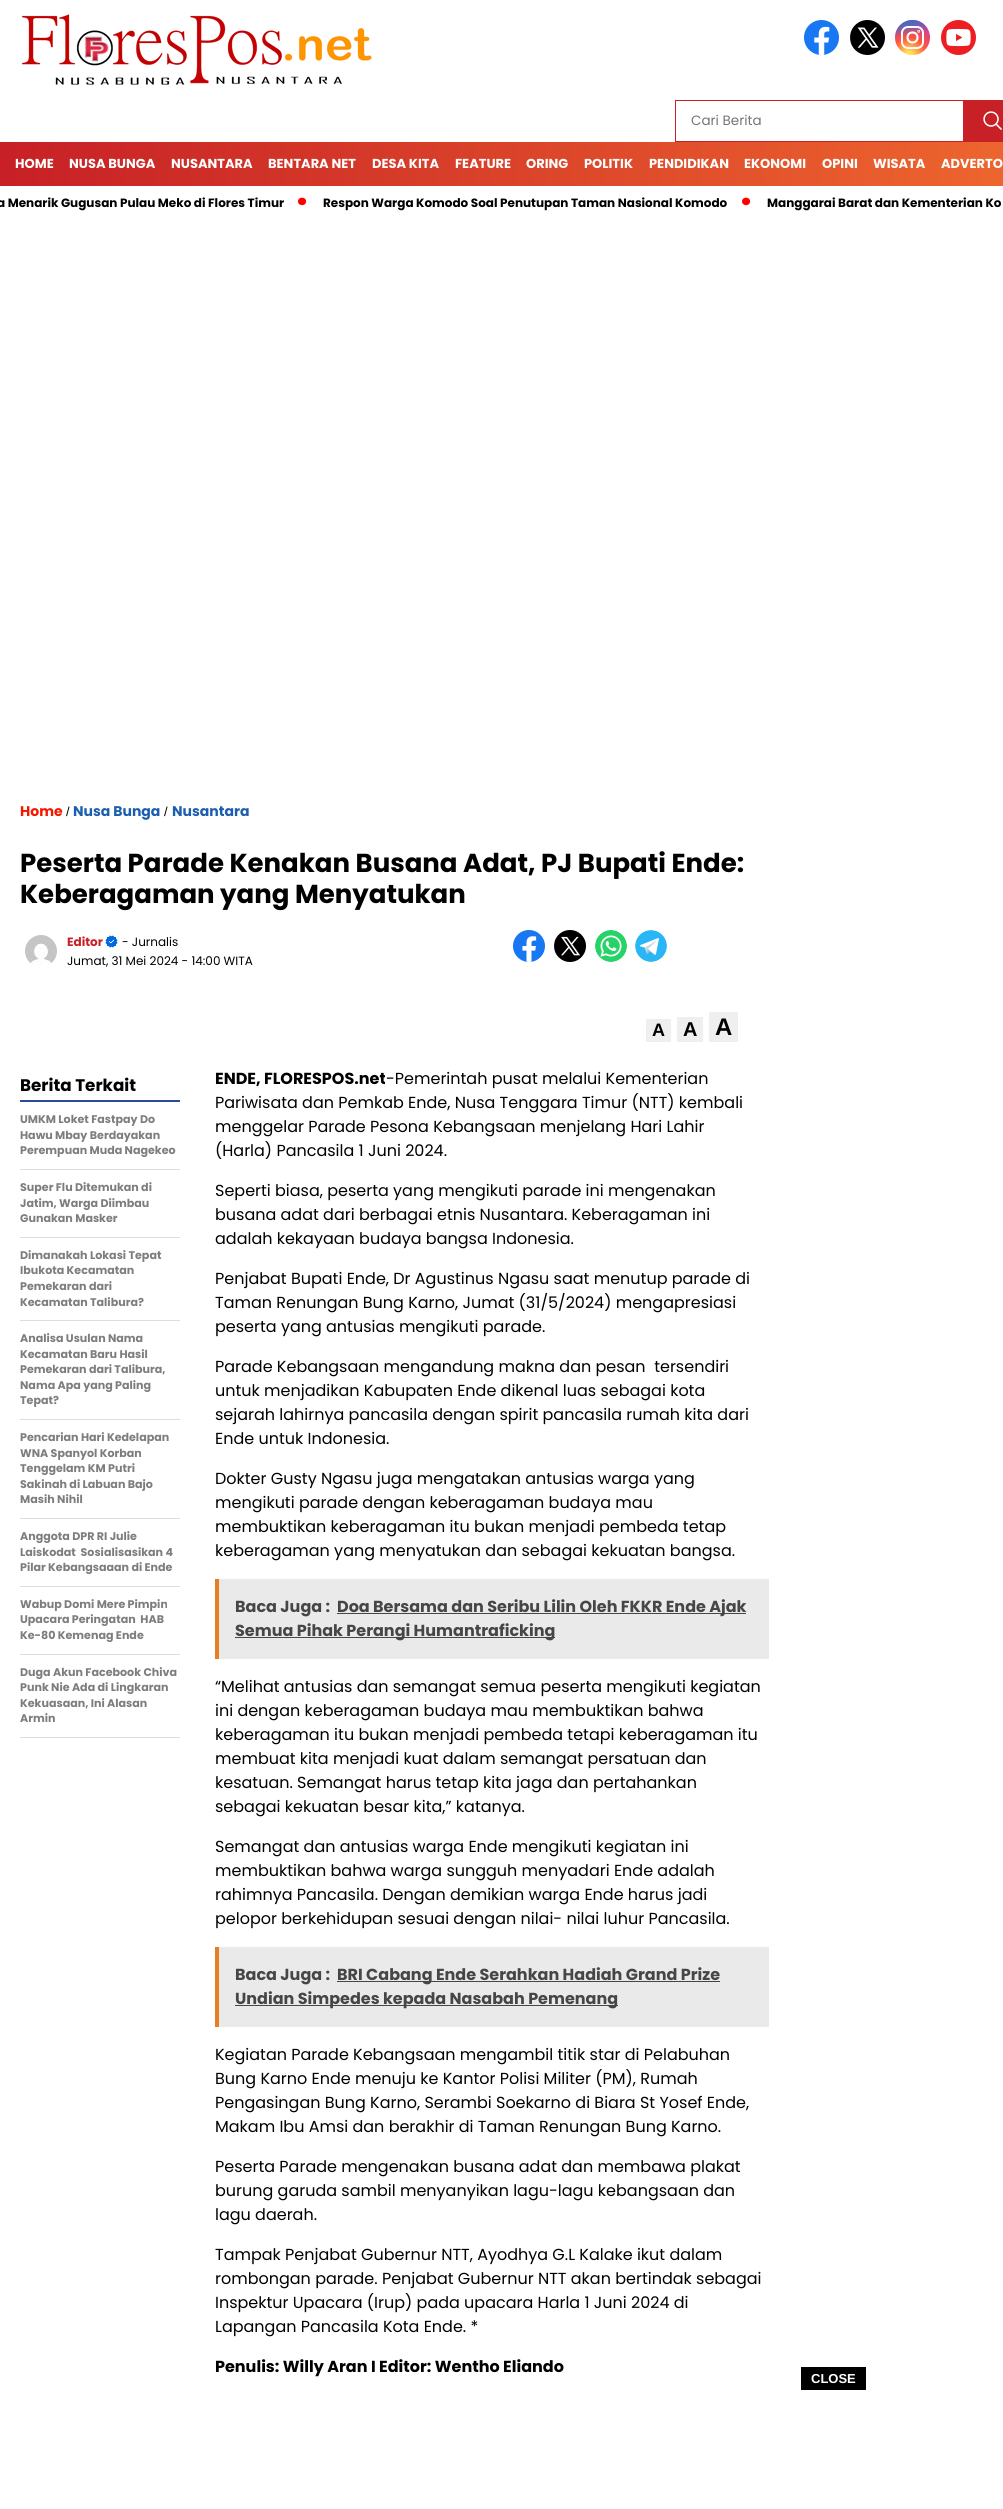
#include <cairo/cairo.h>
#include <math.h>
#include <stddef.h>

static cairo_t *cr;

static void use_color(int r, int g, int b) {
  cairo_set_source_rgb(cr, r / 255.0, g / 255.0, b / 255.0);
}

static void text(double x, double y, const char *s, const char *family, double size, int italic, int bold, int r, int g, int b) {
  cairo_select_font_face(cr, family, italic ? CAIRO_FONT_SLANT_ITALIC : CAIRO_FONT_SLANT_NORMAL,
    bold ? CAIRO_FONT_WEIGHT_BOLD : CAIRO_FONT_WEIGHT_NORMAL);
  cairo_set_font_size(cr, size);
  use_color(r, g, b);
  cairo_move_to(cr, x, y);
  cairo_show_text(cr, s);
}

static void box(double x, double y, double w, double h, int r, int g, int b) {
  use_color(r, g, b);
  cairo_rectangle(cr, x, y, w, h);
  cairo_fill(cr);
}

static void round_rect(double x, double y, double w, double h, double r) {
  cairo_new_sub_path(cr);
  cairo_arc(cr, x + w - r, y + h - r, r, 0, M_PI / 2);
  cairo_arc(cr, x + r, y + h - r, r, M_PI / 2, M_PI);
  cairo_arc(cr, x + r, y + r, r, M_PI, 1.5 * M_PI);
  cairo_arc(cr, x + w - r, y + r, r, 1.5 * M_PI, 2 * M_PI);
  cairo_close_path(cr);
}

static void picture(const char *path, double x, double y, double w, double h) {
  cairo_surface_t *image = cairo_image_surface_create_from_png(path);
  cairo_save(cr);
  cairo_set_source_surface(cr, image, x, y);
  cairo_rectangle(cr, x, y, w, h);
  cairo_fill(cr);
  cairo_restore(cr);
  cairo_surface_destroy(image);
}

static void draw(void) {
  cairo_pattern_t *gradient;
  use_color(255, 255, 255);
  cairo_paint(cr);
  picture("img_01.png", 21, 14, 351, 71);
  picture("img_02.png", 804, 20, 35, 35);
  picture("img_03.png", 850, 20, 35, 35);
  gradient = cairo_pattern_create_radial(909, 55, 0, 909, 55, 35);
  cairo_pattern_add_color_stop_rgba(gradient, 0.1, 1, 0.867, 0.333, 1);
  cairo_pattern_add_color_stop_rgba(gradient, 0.5, 1, 0.329, 0.243, 1);
  cairo_pattern_add_color_stop_rgba(gradient, 1, 0.784, 0.216, 0.671, 1);
  cairo_set_source(cr, gradient);
  cairo_pattern_destroy(gradient);
  cairo_arc(cr, 912.5, 37.5, 17.5, 0, 2 * M_PI);
  cairo_fill(cr);
  gradient = cairo_pattern_create_linear(895, 20, 902, 55);
  cairo_pattern_add_color_stop_rgba(gradient, 0.1, 0.216, 0.443, 0.784, 1);
  cairo_pattern_add_color_stop_rgba(gradient, 0.5, 0.216, 0.443, 0.784, 0);
  cairo_set_source(cr, gradient);
  cairo_pattern_destroy(gradient);
  cairo_arc(cr, 912.5, 37.5, 17.5, 0, 2 * M_PI);
  cairo_fill(cr);
  round_rect(902, 27, 21, 21, 6);
  use_color(255, 255, 255);
  cairo_stroke(cr);
  cairo_arc(cr, 912.5, 37.5, 5, 0, 2 * M_PI);
  cairo_set_line_width(cr, 2.1);
  cairo_stroke(cr);
  cairo_arc(cr, 918.7, 31.3, 0.4, 0, 2 * M_PI);
  cairo_stroke(cr);
  picture("img_04.png", 941, 20, 35, 35);
  cairo_rectangle(cr, 675.5, 100.5, 288, 41);
  use_color(199, 32, 38);
  cairo_set_line_width(cr, 1);
  cairo_stroke(cr);
  box(964, 100, 39, 42, 199, 32, 38);
  picture("img_05.png", 983, 111, 19, 19);
  gradient = cairo_pattern_create_linear(0, 164, 1003, 164);
  cairo_pattern_add_color_stop_rgba(gradient, 0, 0.78, 0.125, 0.149, 1);
  cairo_pattern_add_color_stop_rgba(gradient, 1, 0.929, 0.396, 0.18, 1);
  cairo_set_source(cr, gradient);
  cairo_pattern_destroy(gradient);
  cairo_rectangle(cr, 0, 142, 1003, 44);
  cairo_fill(cr);
  picture("img_06.png", 25, 935, 32, 30);
  picture("img_07.png", 105, 935, 13, 13);
  picture("img_08.png", 513, 930, 32, 32);
  picture("img_09.png", 554, 930, 32, 32);
  picture("img_10.png", 595, 930, 32, 32);
  picture("img_11.png", 635, 930, 32, 32);
  box(646, 1019, 25, 23, 239, 239, 239);
  box(677, 1017, 26, 25, 239, 239, 239);
  box(709, 1012, 29, 30, 239, 239, 239);
  box(20, 1100, 160, 2, 40, 74, 154);
  box(20, 1169, 160, 1, 221, 221, 221);
  box(20, 1237, 160, 1, 221, 221, 221);
  box(20, 1320, 160, 1, 221, 221, 221);
  box(20, 1419, 160, 1, 221, 221, 221);
  box(20, 1518, 160, 1, 221, 221, 221);
  box(20, 1586, 160, 1, 221, 221, 221);
  box(20, 1654, 160, 1, 221, 221, 221);
  box(20, 1737, 160, 1, 221, 221, 221);
  box(219, 1579, 550, 80, 234, 234, 234);
  box(215, 1579, 4, 80, 230, 126, 34);
  box(337, 1613, 409, 1, 70, 70, 70);
  box(235, 1637, 320, 1, 70, 70, 70);
  box(219, 1947, 550, 80, 234, 234, 234);
  box(215, 1947, 4, 80, 230, 126, 34);
  box(337, 1981, 383, 1, 70, 70, 70);
  box(235, 2005, 383, 1, 70, 70, 70);
  box(801, 2367, 65, 23, 0, 0, 0);
  text(691, 125, "Cari Berita", "Poppins", 13.5, 0, 0, 117, 117, 117);
  text(15, 168, "HOME", "Poppins", 13, 0, 1, 255, 255, 255);
  text(69, 168, "NUSA BUNGA", "Poppins", 13, 0, 1, 255, 255, 255);
  text(171, 168, "NUSANTARA", "Poppins", 13, 0, 1, 255, 255, 255);
  text(268, 168, "BENTARA NET", "Poppins", 13, 0, 1, 255, 255, 255);
  text(372, 168, "DESA KITA", "Poppins", 13, 0, 1, 255, 255, 255);
  text(455, 168, "FEATURE", "Poppins", 13, 0, 1, 255, 255, 255);
  text(526, 168, "ORING", "Poppins", 13, 0, 1, 255, 255, 255);
  text(584, 168, "POLITIK", "Poppins", 13, 0, 1, 255, 255, 255);
  text(649, 168, "PENDIDIKAN", "Poppins", 13, 0, 1, 255, 255, 255);
  text(744, 168, "EKONOMI", "Poppins", 13, 0, 1, 255, 255, 255);
  text(822, 168, "OPINI", "Poppins", 13, 0, 1, 255, 255, 255);
  text(873, 168, "WISATA", "Poppins", 13, 0, 1, 255, 255, 255);
  text(941, 168, "ADVERTO", "Poppins", 13, 0, 1, 255, 255, 255);
  text(-3, 207, "a Menarik Gugusan Pulau Meko di Flores Timur", "Poppins", 12, 0, 1, 0, 0, 0);
  text(296, 214, "·", "Poppins", 40, 0, 1, 255, 0, 0);
  text(323, 207, "Respon Warga Komodo Soal Penutupan Taman Nasional Komodo", "Poppins", 12, 0, 1, 0, 0, 0);
  text(740, 214, "·", "Poppins", 40, 0, 1, 255, 0, 0);
  text(767, 207, "Manggarai Barat dan Kementerian Ko", "Poppins", 12, 0, 1, 0, 0, 0);
  text(20, 816, "Home", "Poppins", 14, 0, 1, 245, 23, 0);
  text(66, 816, "/", "Liberation Sans", 13, 0, 0, 0, 0, 0);
  text(73, 816, "Nusa Bunga", "Poppins", 14, 0, 1, 27, 93, 175);
  text(164, 816, "/", "Liberation Sans", 13, 0, 0, 0, 0, 0);
  text(172, 816, "Nusantara", "Poppins", 14, 0, 1, 27, 93, 175);
  text(20, 872, "Peserta Parade Kenakan Busana Adat, PJ Bupati Ende:", "Poppins", 26, 0, 1, 0, 0, 0);
  text(20, 903, "Keberagaman yang Menyatukan", "Poppins", 26, 0, 1, 0, 0, 0);
  text(67, 946, "Editor", "Poppins", 12, 0, 1, 199, 32, 38);
  text(122, 946, "- Jurnalis", "Poppins", 12, 0, 0, 0, 0, 0);
  text(67, 965, "Jumat, 31 Mei 2024 - 14:00 WITA", "Poppins", 12, 0, 0, 0, 0, 0);
  text(652, 1036, "A", "Liberation Sans", 18, 0, 1, 0, 0, 0);
  text(683, 1036, "A", "Liberation Sans", 20, 0, 1, 0, 0, 0);
  text(715, 1035, "A", "Liberation Sans", 24, 0, 1, 0, 0, 0);
  text(20, 1091, "Berita Terkait", "Poppins", 16.75, 0, 1, 0, 0, 0);
  text(20, 1123, "UMKM Loket Fastpay Do", "Poppins", 11.1, 0, 1, 125, 125, 125);
  text(20, 1139, "Hawu Mbay Berdayakan", "Poppins", 11.1, 0, 1, 125, 125, 125);
  text(20, 1154, "Perempuan Muda Nagekeo", "Poppins", 11.1, 0, 1, 125, 125, 125);
  text(20, 1191, "Super Flu Ditemukan di", "Poppins", 11.1, 0, 1, 125, 125, 125);
  text(20, 1207, "Jatim, Warga Diimbau", "Poppins", 11.1, 0, 1, 125, 125, 125);
  text(20, 1222, "Gunakan Masker", "Poppins", 11.1, 0, 1, 125, 125, 125);
  text(20, 1259, "Dimanakah Lokasi Tepat", "Poppins", 11.1, 0, 1, 125, 125, 125);
  text(20, 1274, "Ibukota Kecamatan", "Poppins", 11.1, 0, 1, 125, 125, 125);
  text(20, 1290, "Pemekaran dari", "Poppins", 11.1, 0, 1, 125, 125, 125);
  text(20, 1306, "Kecamatan Talibura?", "Poppins", 11.1, 0, 1, 125, 125, 125);
  text(20, 1342, "Analisa Usulan Nama", "Poppins", 11.1, 0, 1, 125, 125, 125);
  text(20, 1358, "Kecamatan Baru Hasil", "Poppins", 11.1, 0, 1, 125, 125, 125);
  text(20, 1373, "Pemekaran dari Talibura,", "Poppins", 11.1, 0, 1, 125, 125, 125);
  text(20, 1389, "Nama Apa yang Paling", "Poppins", 11.1, 0, 1, 125, 125, 125);
  text(20, 1404, "Tepat?", "Poppins", 11.1, 0, 1, 125, 125, 125);
  text(20, 1441, "Pencarian Hari Kedelapan", "Poppins", 11.1, 0, 1, 125, 125, 125);
  text(20, 1457, "WNA Spanyol Korban", "Poppins", 11.1, 0, 1, 125, 125, 125);
  text(20, 1472, "Tenggelam KM Putri", "Poppins", 11.1, 0, 1, 125, 125, 125);
  text(20, 1488, "Sakinah di Labuan Bajo", "Poppins", 11.1, 0, 1, 125, 125, 125);
  text(20, 1503, "Masih Nihil", "Poppins", 11.1, 0, 1, 125, 125, 125);
  text(20, 1540, "Anggota DPR RI Julie", "Poppins", 11.1, 0, 1, 125, 125, 125);
  text(20, 1556, "Laiskodat  Sosialisasikan 4", "Poppins", 11.1, 0, 1, 125, 125, 125);
  text(20, 1571, "Pilar Kebangsaaan di Ende", "Poppins", 11.1, 0, 1, 125, 125, 125);
  text(20, 1608, "Wabup Domi Mere Pimpin", "Poppins", 11.1, 0, 1, 125, 125, 125);
  text(20, 1623, "Upacara Peringatan  HAB", "Poppins", 11.1, 0, 1, 125, 125, 125);
  text(20, 1639, "Ke-80 Kemenag Ende", "Poppins", 11.1, 0, 1, 125, 125, 125);
  text(20, 1676, "Duga Akun Facebook Chiva", "Poppins", 11.1, 0, 1, 125, 125, 125);
  text(20, 1691, "Punk Nie Ada di Lingkaran", "Poppins", 11.1, 0, 1, 125, 125, 125);
  text(20, 1707, "Kekuasaan, Ini Alasan", "Poppins", 11.1, 0, 1, 125, 125, 125);
  text(20, 1722, "Armin", "Poppins", 11.1, 0, 1, 125, 125, 125);
  text(215, 1084, "ENDE, FLORESPOS.net", "Poppins", 16, 0, 1, 0, 0, 0);
  text(386, 1084, "-Pemerintah pusat melalui Kementerian", "Poppins", 16, 0, 0, 0, 0, 0);
  text(215, 1108, "Pariwisata dan Pemkab Ende, Nusa Tenggara Timur (NTT) kembali", "Poppins", 16, 0, 0, 0, 0, 0);
  text(215, 1132, "menggelar Parade Pesona Kebangsaan menjelang Hari Lahir", "Poppins", 16, 0, 0, 0, 0, 0);
  text(215, 1156, "(Harla) Pancasila 1 Juni 2024.", "Poppins", 16, 0, 0, 0, 0, 0);
  text(215, 1196, "Seperti biasa, peserta yang mengikuti parade ini mengenakan", "Poppins", 16, 0, 0, 0, 0, 0);
  text(215, 1220, "busana adat dari berbagai etnis Nusantara. Keberagaman ini", "Poppins", 16, 0, 0, 0, 0, 0);
  text(215, 1244, "adalah kekayaan budaya bangsa Indonesia.", "Poppins", 16, 0, 0, 0, 0, 0);
  text(215, 1284, "Penjabat Bupati Ende, Dr Agustinus Ngasu saat menutup parade di", "Poppins", 16, 0, 0, 0, 0, 0);
  text(215, 1308, "Taman Renungan Bung Karno, Jumat (31/5/2024) mengapresiasi", "Poppins", 16, 0, 0, 0, 0, 0);
  text(215, 1332, "peserta yang antusias mengikuti parade.", "Poppins", 16, 0, 0, 0, 0, 0);
  text(215, 1372, "Parade Kebangsaan mengandung makna dan pesan  tersendiri", "Poppins", 16, 0, 0, 0, 0, 0);
  text(215, 1396, "untuk menjadikan Kabupaten Ende dikenal luas sebagai kota", "Poppins", 16, 0, 0, 0, 0, 0);
  text(215, 1420, "sejarah lahirnya pancasila dengan spirit pancasila rumah kita dari", "Poppins", 16, 0, 0, 0, 0, 0);
  text(215, 1444, "Ende untuk Indonesia.", "Poppins", 16, 0, 0, 0, 0, 0);
  text(215, 1484, "Dokter Gusty Ngasu juga mengatakan antusias warga yang", "Poppins", 16, 0, 0, 0, 0, 0);
  text(215, 1508, "mengikuti parade dengan keberagaman budaya mau", "Poppins", 16, 0, 0, 0, 0, 0);
  text(215, 1532, "membuktikan keberagaman itu bukan menjadi pembeda tetap", "Poppins", 16, 0, 0, 0, 0, 0);
  text(215, 1556, "keberagaman yang menyatukan dan sebagai kekuatan bangsa.", "Poppins", 16, 0, 0, 0, 0, 0);
  text(235, 1612, "Baca Juga :", "Poppins", 16, 0, 1, 70, 70, 70);
  text(337, 1612, "Doa Bersama dan Seribu Lilin Oleh FKKR Ende Ajak", "Poppins", 16, 0, 1, 70, 70, 70);
  text(235, 1636, "Semua Pihak Perangi Humantraficking", "Poppins", 16, 0, 1, 70, 70, 70);
  text(215, 1692, "“Melihat antusias dan semangat semua peserta mengikuti kegiatan", "Poppins", 16, 0, 0, 0, 0, 0);
  text(215, 1716, "ini dengan keberagaman budaya mau membuktikan bahwa", "Poppins", 16, 0, 0, 0, 0, 0);
  text(215, 1740, "keberagaman itu bukan menjadi pembeda tetapi keberagaman itu", "Poppins", 16, 0, 0, 0, 0, 0);
  text(215, 1764, "membuat kita menjadi kuat dalam semangat persatuan dan", "Poppins", 16, 0, 0, 0, 0, 0);
  text(215, 1788, "kesatuan. Semangat harus tetap kita jaga dan pertahankan", "Poppins", 16, 0, 0, 0, 0, 0);
  text(215, 1812, "sebagai kekuatan besar kita,” katanya.", "Poppins", 16, 0, 0, 0, 0, 0);
  text(215, 1852, "Semangat dan antusias warga Ende mengikuti kegiatan ini", "Poppins", 16, 0, 0, 0, 0, 0);
  text(215, 1876, "membuktikan bahwa warga sungguh menyadari Ende adalah", "Poppins", 16, 0, 0, 0, 0, 0);
  text(215, 1900, "rahimnya Pancasila. Dengan demikian warga Ende harus jadi", "Poppins", 16, 0, 0, 0, 0, 0);
  text(215, 1924, "pelopor berkehidupan sesuai dengan nilai- nilai luhur Pancasila.", "Poppins", 16, 0, 0, 0, 0, 0);
  text(235, 1980, "Baca Juga :", "Poppins", 16, 0, 1, 70, 70, 70);
  text(337, 1980, "BRI Cabang Ende Serahkan Hadiah Grand Prize", "Poppins", 16, 0, 1, 70, 70, 70);
  text(235, 2004, "Undian Simpedes kepada Nasabah Pemenang", "Poppins", 16, 0, 1, 70, 70, 70);
  text(215, 2060, "Kegiatan Parade Kebangsaan mengambil titik star di Pelabuhan", "Poppins", 16, 0, 0, 0, 0, 0);
  text(215, 2084, "Bung Karno Ende menuju ke Kantor Polisi Militer (PM), Rumah", "Poppins", 16, 0, 0, 0, 0, 0);
  text(215, 2108, "Pengasingan Bung Karno, Serambi Soekarno di Biara St Yosef Ende,", "Poppins", 16, 0, 0, 0, 0, 0);
  text(215, 2132, "Makam Ibu Amsi dan berakhir di Taman Renungan Bung Karno.", "Poppins", 16, 0, 0, 0, 0, 0);
  text(215, 2172, "Peserta Parade mengenakan busana adat dan membawa plakat", "Poppins", 16, 0, 0, 0, 0, 0);
  text(215, 2196, "burung garuda sambil menyanyikan lagu-lagu kebangsaan dan", "Poppins", 16, 0, 0, 0, 0, 0);
  text(215, 2220, "lagu daerah.", "Poppins", 16, 0, 0, 0, 0, 0);
  text(215, 2260, "Tampak Penjabat Gubernur NTT, Ayodhya G.L Kalake ikut dalam", "Poppins", 16, 0, 0, 0, 0, 0);
  text(215, 2284, "rombongan parade. Penjabat Gubernur NTT akan bertindak sebagai", "Poppins", 16, 0, 0, 0, 0, 0);
  text(215, 2308, "Inspektur Upacara (Irup) pada upacara Harla 1 Juni 2024 di", "Poppins", 16, 0, 0, 0, 0, 0);
  text(215, 2332, "Lapangan Pancasila Kota Ende. *", "Poppins", 16, 0, 0, 0, 0, 0);
  text(215, 2372, "Penulis: Willy Aran I Editor: Wentho Eliando", "Poppins", 16, 0, 1, 0, 0, 0);
  text(811, 2383, "CLOSE", "Liberation Sans", 13, 0, 1, 255, 255, 255);
}

int main(void) {
  cairo_surface_t *surface = cairo_image_surface_create(CAIRO_FORMAT_RGB24, 1003, 2509);
  cr = cairo_create(surface);
  cairo_font_options_t *options = cairo_font_options_create();
  cairo_font_options_set_hint_metrics(options, CAIRO_HINT_METRICS_OFF);
  cairo_font_options_set_hint_style(options, CAIRO_HINT_STYLE_NONE);
  cairo_set_font_options(cr, options);
  cairo_set_miter_limit(cr, 4);
  draw();
  cairo_surface_write_to_png(surface, "out.png");
  cairo_font_options_destroy(options);
  cairo_destroy(cr);
  cairo_surface_destroy(surface);
  return 0;
}
